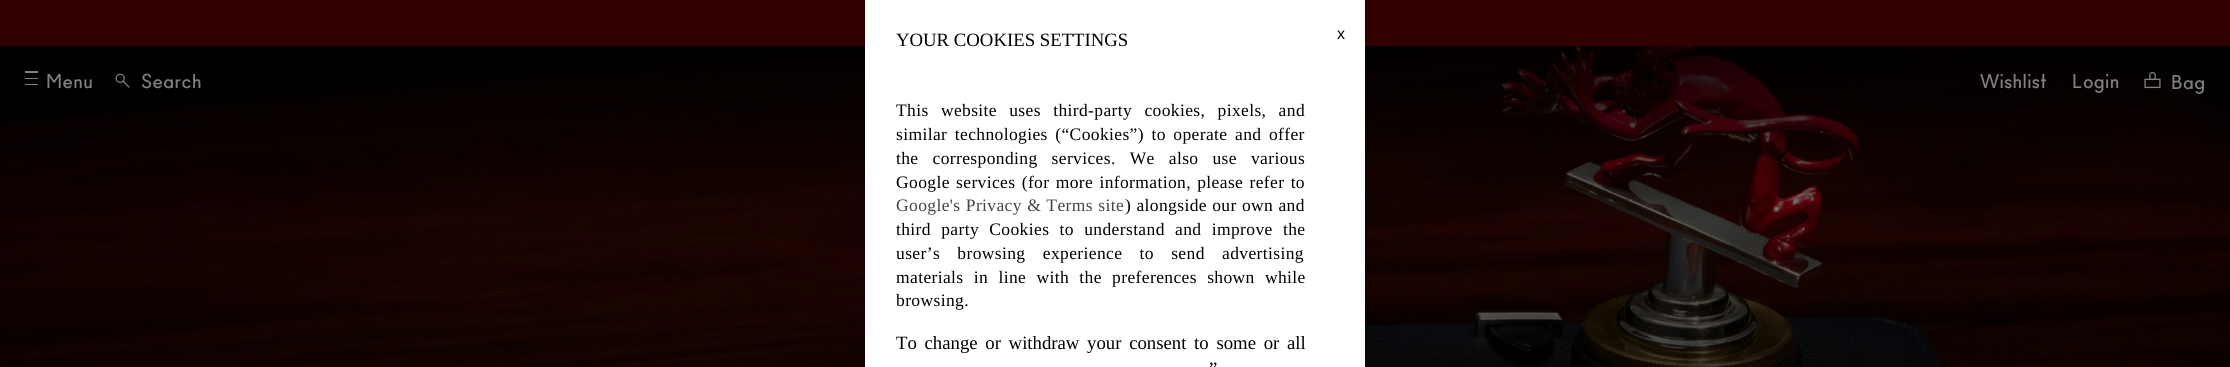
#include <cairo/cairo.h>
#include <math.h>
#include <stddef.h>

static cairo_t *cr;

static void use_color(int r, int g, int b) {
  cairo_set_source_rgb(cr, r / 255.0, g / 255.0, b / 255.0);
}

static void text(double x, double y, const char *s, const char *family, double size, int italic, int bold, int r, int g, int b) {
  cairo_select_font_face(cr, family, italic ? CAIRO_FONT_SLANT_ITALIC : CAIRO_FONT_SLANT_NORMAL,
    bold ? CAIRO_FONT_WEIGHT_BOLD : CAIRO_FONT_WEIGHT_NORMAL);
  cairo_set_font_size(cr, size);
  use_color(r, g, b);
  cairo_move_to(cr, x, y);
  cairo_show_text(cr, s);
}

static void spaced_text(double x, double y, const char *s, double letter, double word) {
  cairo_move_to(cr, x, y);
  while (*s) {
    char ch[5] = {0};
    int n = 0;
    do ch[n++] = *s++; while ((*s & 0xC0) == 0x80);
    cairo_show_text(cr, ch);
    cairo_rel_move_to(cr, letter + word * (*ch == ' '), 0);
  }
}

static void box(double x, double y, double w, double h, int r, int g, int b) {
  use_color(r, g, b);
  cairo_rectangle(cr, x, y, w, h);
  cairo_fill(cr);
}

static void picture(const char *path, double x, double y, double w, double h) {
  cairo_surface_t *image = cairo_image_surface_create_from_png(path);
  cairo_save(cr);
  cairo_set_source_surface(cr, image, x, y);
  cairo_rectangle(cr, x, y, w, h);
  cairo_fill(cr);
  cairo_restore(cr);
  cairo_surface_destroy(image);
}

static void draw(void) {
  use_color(255, 255, 255);
  cairo_paint(cr);
  picture("img_01.png", 0, 46, 2230, 321);
  box(0, 0, 2230, 46, 51, 0, 0);
  box(865, 0, 500, 367, 255, 255, 255);
  box(25, 71, 13, 2, 128, 128, 128);
  box(25, 78, 13, 1, 128, 128, 128);
  box(25, 84, 13, 1, 128, 128, 128);
  picture("img_02.png", 115, 73, 15, 15);
  picture("img_03.png", 2144, 72, 17, 17);
  text(896, 46, "YOUR COOKIES SETTINGS", "Liberation Serif", 18.75, 0, 0, 0, 0, 0);
  cairo_set_font_size(cr, 17.5);
  spaced_text(896, 116, "This website uses third-party cookies, pixels, and", 0.38, 7.5);
  spaced_text(896, 140, "similar technologies (“Cookies”) to operate and offer", 0.38, 2.75);
  spaced_text(896, 164, "the corresponding services. We also use various", 0.38, 9.25);
  spaced_text(896, 188, "Google services (for more information, please refer to", 0.38, 1.5);
  use_color(68, 68, 68);
  spaced_text(896, 211, "Google's Privacy & Terms site", 0.38, 0.5);
  use_color(0, 0, 0);
  spaced_text(1125, 211, ") alongside our own and", 0.38, 0.5);
  spaced_text(896, 235, "third party Cookies to understand and improve the", 0.38, 5.5);
  spaced_text(896, 259, "user’s browsing experience to send advertising", 0.38, 12.5);
  spaced_text(896, 283, "materials in line with the preferences shown while", 0.38, 5.5);
  spaced_text(896, 306, "browsing.", 0.38, 0);
  cairo_set_font_size(cr, 18.75);
  spaced_text(896, 349, "To change or withdraw your consent to some or all", 0, 3);
  spaced_text(1209, 375, "”", 0, 1);
  text(1337, 39, "x", "Liberation Sans", 16, 0, 0, 0, 0, 0);
  cairo_select_font_face(cr, "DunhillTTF", CAIRO_FONT_SLANT_NORMAL, CAIRO_FONT_WEIGHT_NORMAL);
  cairo_set_font_size(cr, 18.75);
  use_color(128, 128, 128);
  spaced_text(46, 88, "Menu", 0.38, 0);
  spaced_text(141, 88, "Search", 0.38, 0);
  spaced_text(1980, 88, "Wishlist", 0.38, 0);
  spaced_text(2072, 88, "Login", 0.38, 0);
  spaced_text(2171, 89, "Bag", 0.38, 0);
}

int main(void) {
  cairo_surface_t *surface = cairo_image_surface_create(CAIRO_FORMAT_RGB24, 2230, 367);
  cr = cairo_create(surface);
  cairo_font_options_t *options = cairo_font_options_create();
  cairo_font_options_set_hint_metrics(options, CAIRO_HINT_METRICS_OFF);
  cairo_font_options_set_hint_style(options, CAIRO_HINT_STYLE_NONE);
  cairo_set_font_options(cr, options);
  cairo_set_miter_limit(cr, 4);
  draw();
  cairo_surface_write_to_png(surface, "out.png");
  cairo_font_options_destroy(options);
  cairo_destroy(cr);
  cairo_surface_destroy(surface);
  return 0;
}
